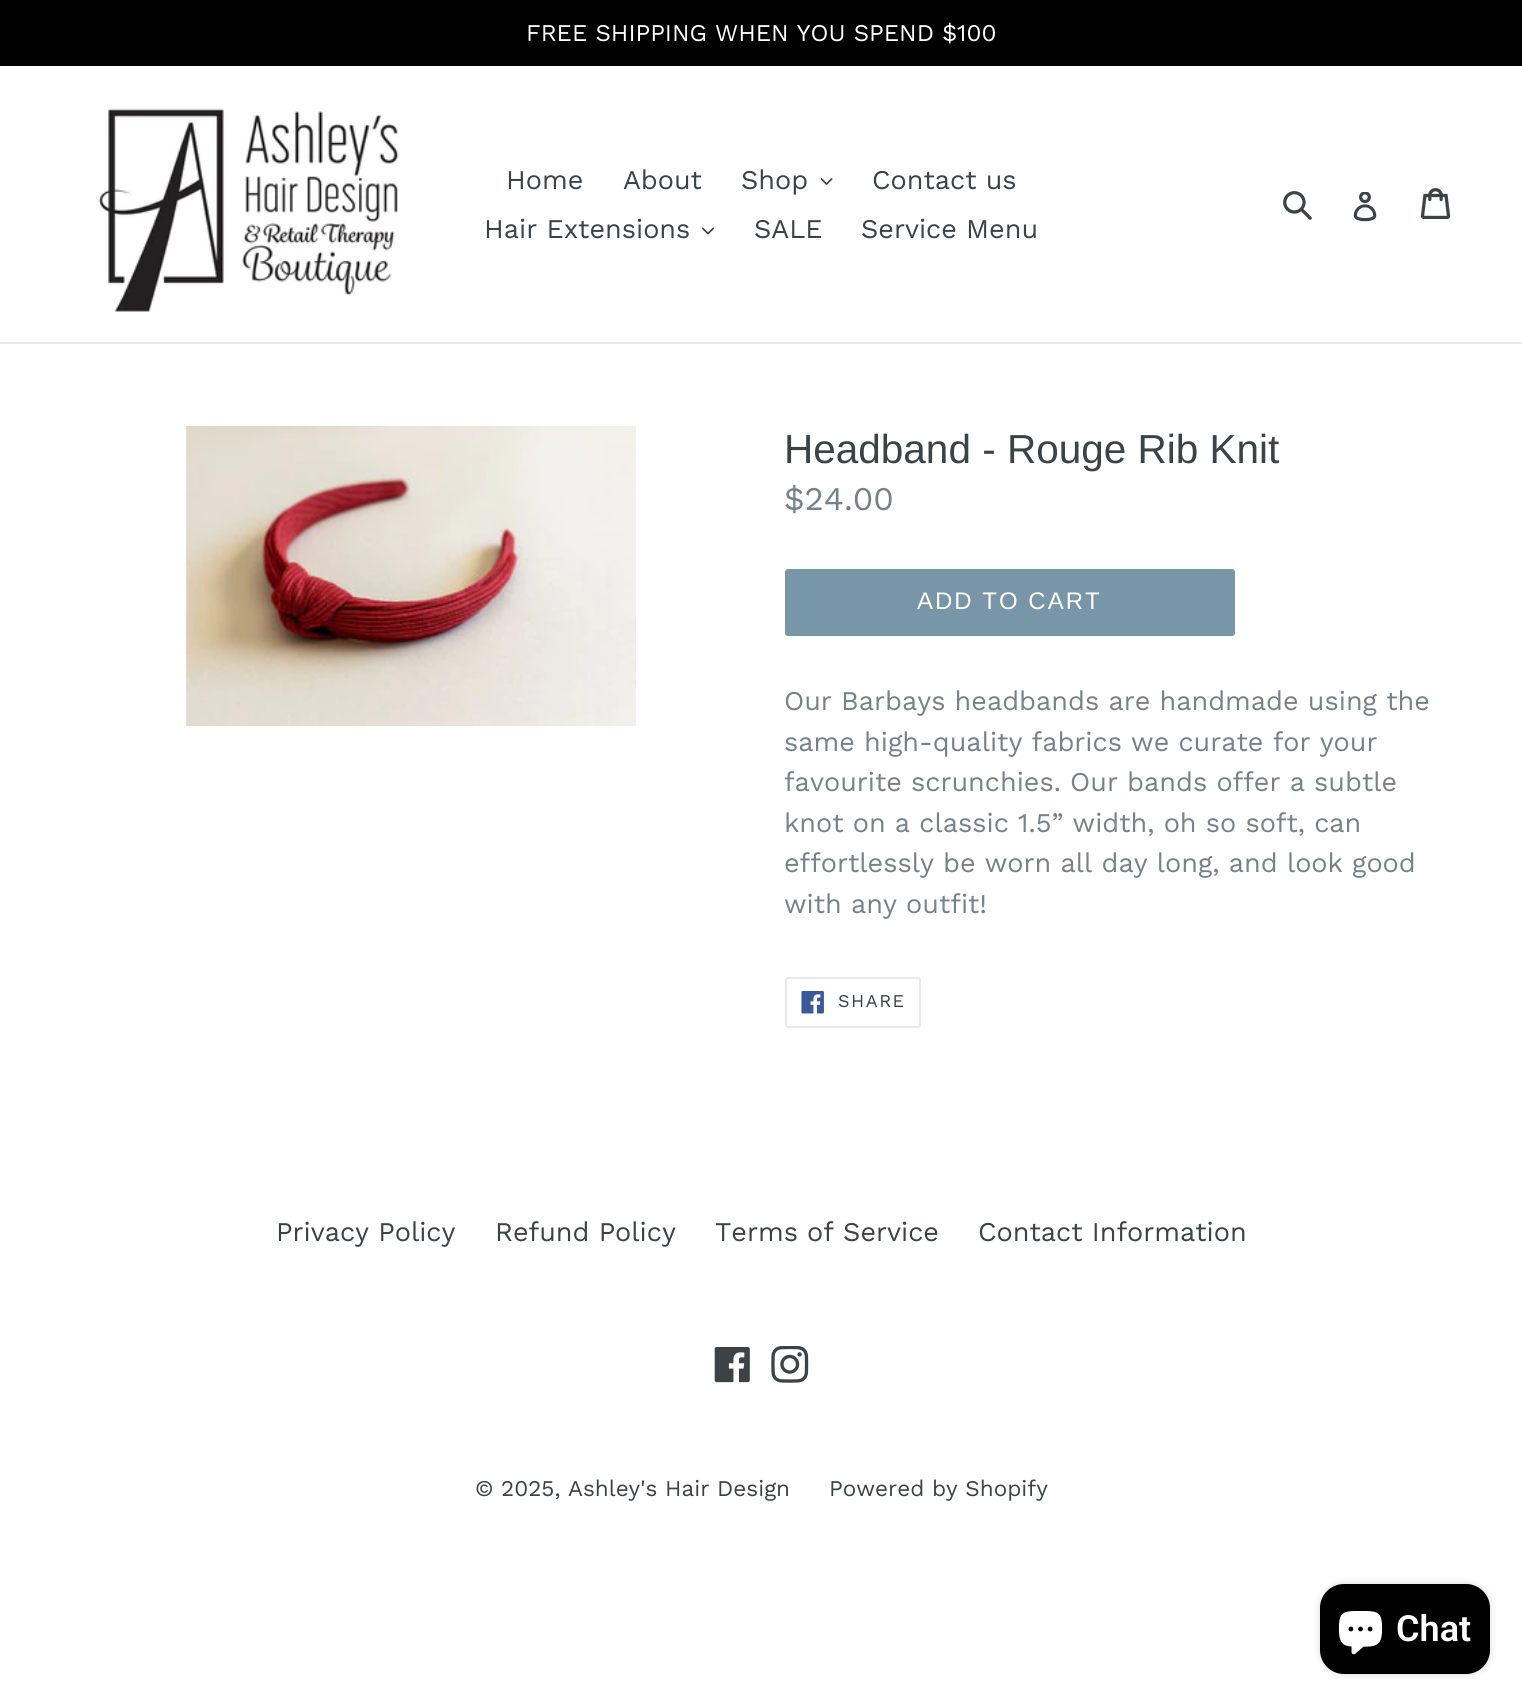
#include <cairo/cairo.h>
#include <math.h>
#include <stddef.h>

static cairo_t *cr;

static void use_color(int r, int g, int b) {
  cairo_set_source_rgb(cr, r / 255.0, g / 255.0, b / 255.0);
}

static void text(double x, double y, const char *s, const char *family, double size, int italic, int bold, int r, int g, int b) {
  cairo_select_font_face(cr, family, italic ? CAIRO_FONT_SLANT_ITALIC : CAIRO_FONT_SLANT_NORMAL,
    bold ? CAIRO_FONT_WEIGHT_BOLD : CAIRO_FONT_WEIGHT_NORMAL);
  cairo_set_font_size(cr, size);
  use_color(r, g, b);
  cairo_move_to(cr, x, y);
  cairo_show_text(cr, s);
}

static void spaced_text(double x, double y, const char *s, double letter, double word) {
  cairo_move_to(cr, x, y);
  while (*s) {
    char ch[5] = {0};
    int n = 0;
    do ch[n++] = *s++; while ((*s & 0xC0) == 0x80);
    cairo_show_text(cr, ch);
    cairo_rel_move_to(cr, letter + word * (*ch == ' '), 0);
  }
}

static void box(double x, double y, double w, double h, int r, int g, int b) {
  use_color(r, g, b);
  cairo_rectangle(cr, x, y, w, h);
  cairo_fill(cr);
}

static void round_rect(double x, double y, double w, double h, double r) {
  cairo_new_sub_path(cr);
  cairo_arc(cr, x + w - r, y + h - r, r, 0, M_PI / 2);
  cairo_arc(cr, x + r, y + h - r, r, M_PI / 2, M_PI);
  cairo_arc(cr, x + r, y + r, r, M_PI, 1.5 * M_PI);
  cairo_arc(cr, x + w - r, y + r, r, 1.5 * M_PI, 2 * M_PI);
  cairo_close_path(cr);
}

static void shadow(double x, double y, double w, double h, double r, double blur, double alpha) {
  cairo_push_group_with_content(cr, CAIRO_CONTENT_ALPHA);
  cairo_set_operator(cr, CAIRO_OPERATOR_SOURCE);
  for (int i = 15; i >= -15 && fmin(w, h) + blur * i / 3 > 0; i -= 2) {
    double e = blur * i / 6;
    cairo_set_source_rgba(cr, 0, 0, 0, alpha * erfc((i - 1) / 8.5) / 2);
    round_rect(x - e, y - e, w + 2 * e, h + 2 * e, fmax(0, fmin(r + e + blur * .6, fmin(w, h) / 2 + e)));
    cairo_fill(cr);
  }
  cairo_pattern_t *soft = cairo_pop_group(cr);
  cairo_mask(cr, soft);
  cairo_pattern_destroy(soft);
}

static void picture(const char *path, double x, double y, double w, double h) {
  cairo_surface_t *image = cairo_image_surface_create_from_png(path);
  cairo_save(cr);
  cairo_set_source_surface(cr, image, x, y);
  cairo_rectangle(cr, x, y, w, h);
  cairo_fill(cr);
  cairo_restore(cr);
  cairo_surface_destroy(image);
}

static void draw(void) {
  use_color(255, 255, 255);
  cairo_paint(cr);
  box(0, 0, 1522, 66, 0, 0, 0);
  box(0, 342, 1522, 2, 232, 233, 235);
  picture("img_01.png", 98, 108, 301, 204);
  picture("img_02.png", 821, 178, 12, 7);
  picture("img_03.png", 702, 227, 12, 8);
  picture("img_04.png", 1283, 191, 29, 29);
  picture("img_05.png", 1353, 192, 24, 30);
  picture("img_06.png", 1421, 188, 30, 31);
  picture("img_07.png", 185, 426, 451, 300);
  use_color(119, 150, 168);
  round_rect(785, 569, 450, 67, 3);
  cairo_fill(cr);
  round_rect(786, 978, 134, 49, 2);
  use_color(232, 233, 235);
  cairo_stroke(cr);
  picture("img_08.png", 801, 991, 23, 23);
  picture("img_09.png", 714, 1347, 36, 36);
  picture("img_10.png", 771, 1346, 38, 37);
  use_color(0, 0, 0);
  shadow(1320, 1584, 170, 90, 24, 4, 0.15);
  use_color(0, 0, 0);
  round_rect(1320, 1584, 170, 90, 24);
  cairo_fill(cr);
  picture("img_11.png", 1338, 1611, 45, 44);
  text(526, 41, "FREE SHIPPING WHEN YOU SPEND $100", "Work Sans", 24, 0, 0, 255, 255, 255);
  text(506, 189, "Home", "Work Sans", 27, 0, 0, 61, 66, 70);
  text(623, 189, "About", "Work Sans", 27, 0, 0, 61, 66, 70);
  text(741, 189, "Shop", "Work Sans", 27, 0, 0, 61, 66, 70);
  text(872, 189, "Contact us", "Work Sans", 27, 0, 0, 61, 66, 70);
  text(484, 238, "Hair Extensions", "Work Sans", 27, 0, 0, 61, 66, 70);
  text(754, 238, "SALE", "Work Sans", 27, 0, 0, 61, 66, 70);
  text(861, 238, "Service Menu", "Work Sans", 27, 0, 0, 61, 66, 70);
  text(784, 463, "Headband - Rouge Rib Knit", "Liberation Sans", 40.5, 0, 0, 61, 66, 70);
  text(784, 510, "$24.00", "Work Sans", 33, 0, 0, 120, 129, 136);
  cairo_select_font_face(cr, "Liberation Sans", CAIRO_FONT_SLANT_NORMAL, CAIRO_FONT_WEIGHT_NORMAL);
  cairo_set_font_size(cr, 24);
  use_color(255, 255, 255);
  spaced_text(917, 609, "ADD TO CART", 2, 0);
  text(784, 710, "Our Barbays headbands are handmade using the", "Work Sans", 27, 0, 0, 120, 129, 136);
  text(784, 751, "same high-quality fabrics we curate for your", "Work Sans", 27, 0, 0, 120, 129, 136);
  text(784, 791, "favourite scrunchies. Our bands offer a subtle", "Work Sans", 27, 0, 0, 120, 129, 136);
  text(784, 832, "knot on a classic 1.5” width, oh so soft, can", "Work Sans", 27, 0, 0, 120, 129, 136);
  text(784, 872, "effortlessly be worn all day long, and look good", "Work Sans", 27, 0, 0, 120, 129, 136);
  text(784, 913, "with any outfit!", "Work Sans", 27, 0, 0, 120, 129, 136);
  cairo_set_font_size(cr, 18);
  use_color(61, 66, 70);
  spaced_text(838, 1007, "SHARE", 1.5, 0);
  text(276, 1241, "Privacy Policy", "Work Sans", 27, 0, 0, 61, 66, 70);
  text(495, 1241, "Refund Policy", "Work Sans", 27, 0, 0, 61, 66, 70);
  text(715, 1241, "Terms of Service", "Work Sans", 27, 0, 0, 61, 66, 70);
  text(978, 1241, "Contact Information", "Work Sans", 27, 0, 0, 61, 66, 70);
  text(475, 1496, "© 2025, Ashley's Hair Design", "Work Sans", 22.5, 0, 0, 61, 66, 70);
  text(829, 1496, "Powered by Shopify", "Work Sans", 22.5, 0, 0, 61, 66, 70);
  text(1396, 1641, "Chat", "Roboto SemiBold", 36, 0, 0, 255, 255, 255);
}

int main(void) {
  cairo_surface_t *surface = cairo_image_surface_create(CAIRO_FORMAT_RGB24, 1522, 1705);
  cr = cairo_create(surface);
  cairo_font_options_t *options = cairo_font_options_create();
  cairo_font_options_set_hint_metrics(options, CAIRO_HINT_METRICS_OFF);
  cairo_font_options_set_hint_style(options, CAIRO_HINT_STYLE_NONE);
  cairo_set_font_options(cr, options);
  cairo_set_miter_limit(cr, 4);
  draw();
  cairo_surface_write_to_png(surface, "out.png");
  cairo_font_options_destroy(options);
  cairo_destroy(cr);
  cairo_surface_destroy(surface);
  return 0;
}
